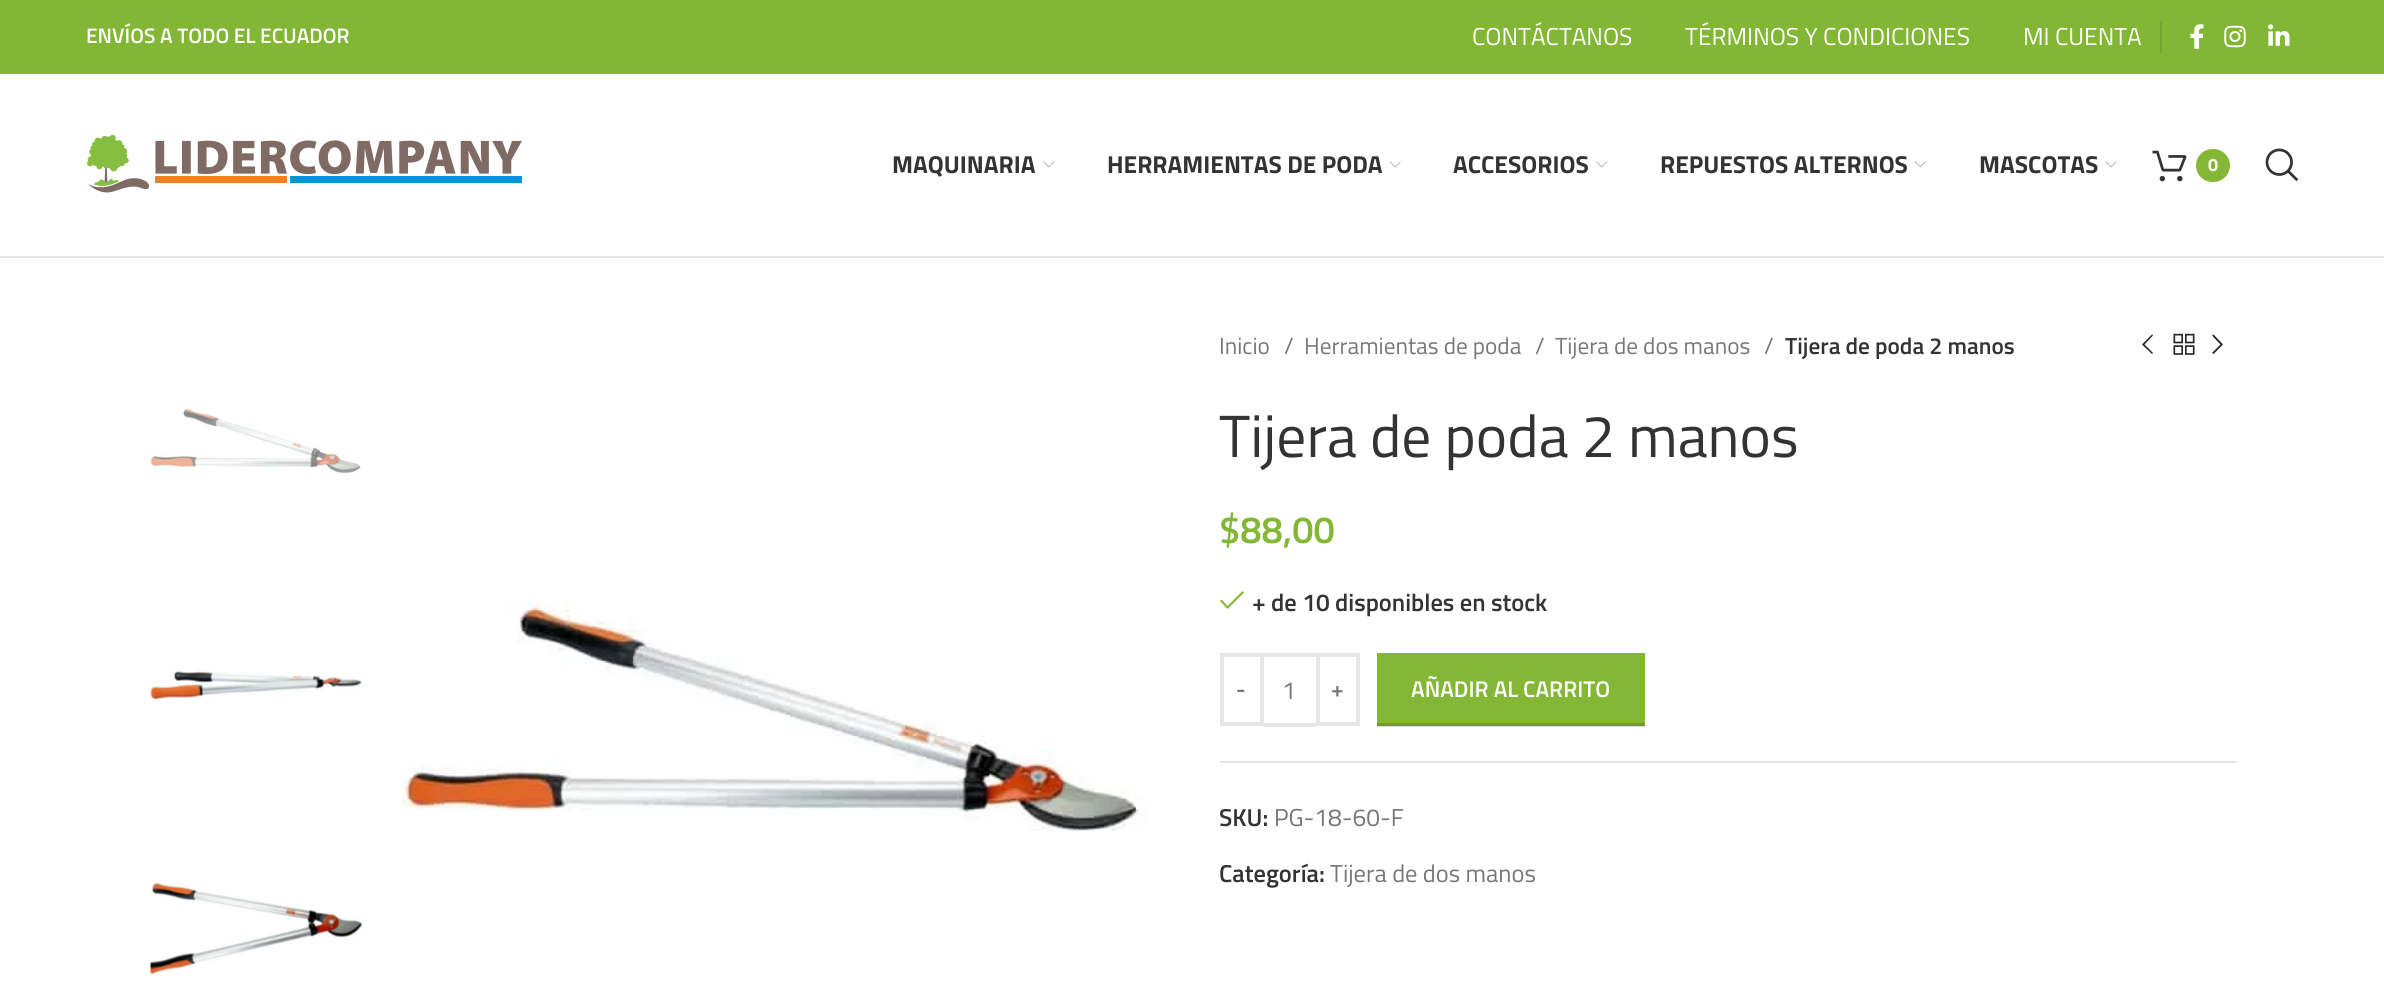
#include <cairo/cairo.h>
#include <math.h>
#include <stddef.h>

static cairo_t *cr;

static void use_color(int r, int g, int b) {
  cairo_set_source_rgb(cr, r / 255.0, g / 255.0, b / 255.0);
}

static void text(double x, double y, const char *s, const char *family, double size, int italic, int bold, int r, int g, int b) {
  cairo_select_font_face(cr, family, italic ? CAIRO_FONT_SLANT_ITALIC : CAIRO_FONT_SLANT_NORMAL,
    bold ? CAIRO_FONT_WEIGHT_BOLD : CAIRO_FONT_WEIGHT_NORMAL);
  cairo_set_font_size(cr, size);
  use_color(r, g, b);
  cairo_move_to(cr, x, y);
  cairo_show_text(cr, s);
}

static void box(double x, double y, double w, double h, int r, int g, int b) {
  use_color(r, g, b);
  cairo_rectangle(cr, x, y, w, h);
  cairo_fill(cr);
}

static void round_rect(double x, double y, double w, double h, double r) {
  cairo_new_sub_path(cr);
  cairo_arc(cr, x + w - r, y + h - r, r, 0, M_PI / 2);
  cairo_arc(cr, x + r, y + h - r, r, M_PI / 2, M_PI);
  cairo_arc(cr, x + r, y + r, r, M_PI, 1.5 * M_PI);
  cairo_arc(cr, x + w - r, y + r, r, 1.5 * M_PI, 2 * M_PI);
  cairo_close_path(cr);
}

static void picture(const char *path, double x, double y, double w, double h) {
  cairo_surface_t *image = cairo_image_surface_create_from_png(path);
  cairo_save(cr);
  cairo_set_source_surface(cr, image, x, y);
  cairo_rectangle(cr, x, y, w, h);
  cairo_fill(cr);
  cairo_restore(cr);
  cairo_surface_destroy(image);
}

static void draw(void) {
  use_color(255, 255, 255);
  cairo_paint(cr);
  box(1377, 726, 268, 1, 217, 217, 217);
  box(0, 0, 2384, 74, 130, 183, 53);
  box(2160, 21, 2, 32, 116, 164, 47);
  picture("img_01.png", 2190, 24, 14, 25);
  picture("img_02.png", 2224, 25, 22, 23);
  picture("img_03.png", 2268, 24, 22, 22);
  box(0, 256, 2384, 2, 230, 230, 230);
  picture("img_04.png", 87, 135, 435, 58);
  picture("img_05.png", 1043, 161, 12, 7);
  picture("img_06.png", 1389, 161, 12, 7);
  picture("img_05.png", 1596, 161, 12, 7);
  picture("img_06.png", 1914, 161, 12, 7);
  picture("img_07.png", 2105, 161, 12, 7);
  picture("img_08.png", 2152, 150, 35, 32);
  use_color(131, 183, 53);
  round_rect(2196, 149, 34, 33, 16.5);
  cairo_fill(cr);
  picture("img_09.png", 2265, 148, 34, 34);
  picture("img_10.png", 150, 408, 211, 66);
  picture("img_11.png", 150, 668, 212, 33);
  picture("img_12.png", 150, 882, 213, 93);
  picture("img_13.png", 402, 599, 744, 232);
  use_color(36, 36, 36);
  cairo_new_path(cr);
  cairo_move_to(cr, 2153, 335.5);
  cairo_line_to(cr, 2152, 334.5);
  cairo_line_to(cr, 2142, 344.5);
  cairo_line_to(cr, 2152, 354);
  cairo_line_to(cr, 2153, 353);
  cairo_line_to(cr, 2144.5, 344.5);
  cairo_close_path(cr);
  cairo_fill(cr);
  picture("img_14.png", 2173, 333, 22, 22);
  cairo_new_path(cr);
  cairo_move_to(cr, 2212, 335.5);
  cairo_line_to(cr, 2220.5, 344.5);
  cairo_line_to(cr, 2212, 353);
  cairo_line_to(cr, 2213.5, 354);
  cairo_line_to(cr, 2223, 344.5);
  cairo_line_to(cr, 2213.5, 334.5);
  cairo_close_path(cr);
  cairo_fill(cr);
  use_color(131, 183, 53);
  cairo_new_path(cr);
  cairo_move_to(cr, 1244, 592.5);
  cairo_line_to(cr, 1242.5, 591);
  cairo_line_to(cr, 1227.5, 606);
  cairo_line_to(cr, 1221.5, 599.5);
  cairo_line_to(cr, 1220, 601);
  cairo_line_to(cr, 1227.5, 609);
  cairo_close_path(cr);
  cairo_fill(cr);
  cairo_rectangle(cr, 1222, 655, 40, 69);
  use_color(230, 230, 230);
  cairo_set_line_width(cr, 4);
  cairo_stroke(cr);
  box(1264, 653, 52, 4, 230, 230, 230);
  box(1264, 723, 52, 4, 230, 230, 230);
  cairo_rectangle(cr, 1318, 655, 40, 69);
  cairo_stroke(cr);
  box(1377, 653, 268, 70, 131, 183, 53);
  box(1377, 723, 268, 3, 111, 156, 45);
  box(1220, 761, 1017, 2, 228, 228, 228);
  text(86, 43, "ENVÍOS A TODO EL ECUADOR", "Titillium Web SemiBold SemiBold", 21, 0, 0, 255, 255, 255);
  text(1472, 45, "CONTÁCTANOS", "Titillium Web", 24.5, 0, 0, 255, 255, 255);
  text(1685, 45, "TÉRMINOS Y CONDICIONES", "Titillium Web", 24.5, 0, 0, 255, 255, 255);
  text(2023, 45, "MI CUENTA", "Titillium Web", 24.5, 0, 0, 255, 255, 255);
  text(892, 173, "MAQUINARIA", "Titillium Web", 24.5, 0, 1, 51, 51, 51);
  text(1107, 173, "HERRAMIENTAS DE PODA", "Titillium Web", 24.5, 0, 1, 51, 51, 51);
  text(1453, 173, "ACCESORIOS", "Titillium Web", 24.5, 0, 1, 51, 51, 51);
  text(1660, 173, "REPUESTOS ALTERNOS", "Titillium Web", 24.5, 0, 1, 51, 51, 51);
  text(1979, 173, "MASCOTAS", "Titillium Web", 24.5, 0, 1, 51, 51, 51);
  text(2208, 171, "0", "Titillium Web", 18, 0, 1, 255, 255, 255);
  text(1219, 354, "Inicio", "Titillium Web", 23.25, 0, 0, 119, 119, 119);
  text(1284, 354, "/", "Titillium Web", 23.25, 0, 0, 119, 119, 119);
  text(1304, 354, "Herramientas de poda", "Titillium Web", 23.25, 0, 0, 119, 119, 119);
  text(1535, 354, "/", "Titillium Web", 23.25, 0, 0, 119, 119, 119);
  text(1555, 354, "Tijera de dos manos", "Titillium Web", 23.25, 0, 0, 119, 119, 119);
  text(1764, 354, "/", "Titillium Web", 23.25, 0, 0, 119, 119, 119);
  text(1785, 354, "Tijera de poda 2 manos", "Titillium Web SemiBold SemiBold", 23.25, 0, 0, 51, 51, 51);
  text(1219, 457, "Tijera de poda 2 manos", "Titillium Web", 59.5, 0, 0, 51, 51, 51);
  text(1219, 543, "$88,00", "Titillium Web SemiBold SemiBold", 38, 0, 0, 131, 183, 53);
  text(1252, 611, "+ de 10 disponibles en stock", "Titillium Web SemiBold SemiBold", 24.5, 0, 0, 51, 51, 51);
  text(1236, 697, "-", "Titillium Web SemiBold SemiBold", 22.75, 0, 0, 119, 119, 119);
  text(1282, 699, "1", "Titillium Web", 24.5, 0, 0, 119, 119, 119);
  text(1331, 697, "+", "Titillium Web SemiBold SemiBold", 22.75, 0, 0, 119, 119, 119);
  text(1411, 697, "AÑADIR AL CARRITO", "Titillium Web SemiBold SemiBold", 22.75, 0, 0, 255, 255, 255);
  text(1219, 826, "SKU:", "Titillium Web SemiBold SemiBold", 24.5, 0, 0, 51, 51, 51);
  text(1274, 826, "PG-18-60-F", "Titillium Web", 24.5, 0, 0, 119, 119, 119);
  text(1219, 882, "Categoría:", "Titillium Web SemiBold SemiBold", 24.5, 0, 0, 51, 51, 51);
  text(1330, 882, "Tijera de dos manos", "Titillium Web", 24.5, 0, 0, 119, 119, 119);
}

int main(void) {
  cairo_surface_t *surface = cairo_image_surface_create(CAIRO_FORMAT_RGB24, 2384, 994);
  cr = cairo_create(surface);
  cairo_font_options_t *options = cairo_font_options_create();
  cairo_font_options_set_hint_metrics(options, CAIRO_HINT_METRICS_OFF);
  cairo_font_options_set_hint_style(options, CAIRO_HINT_STYLE_NONE);
  cairo_set_font_options(cr, options);
  cairo_set_miter_limit(cr, 4);
  draw();
  cairo_surface_write_to_png(surface, "out.png");
  cairo_font_options_destroy(options);
  cairo_destroy(cr);
  cairo_surface_destroy(surface);
  return 0;
}
